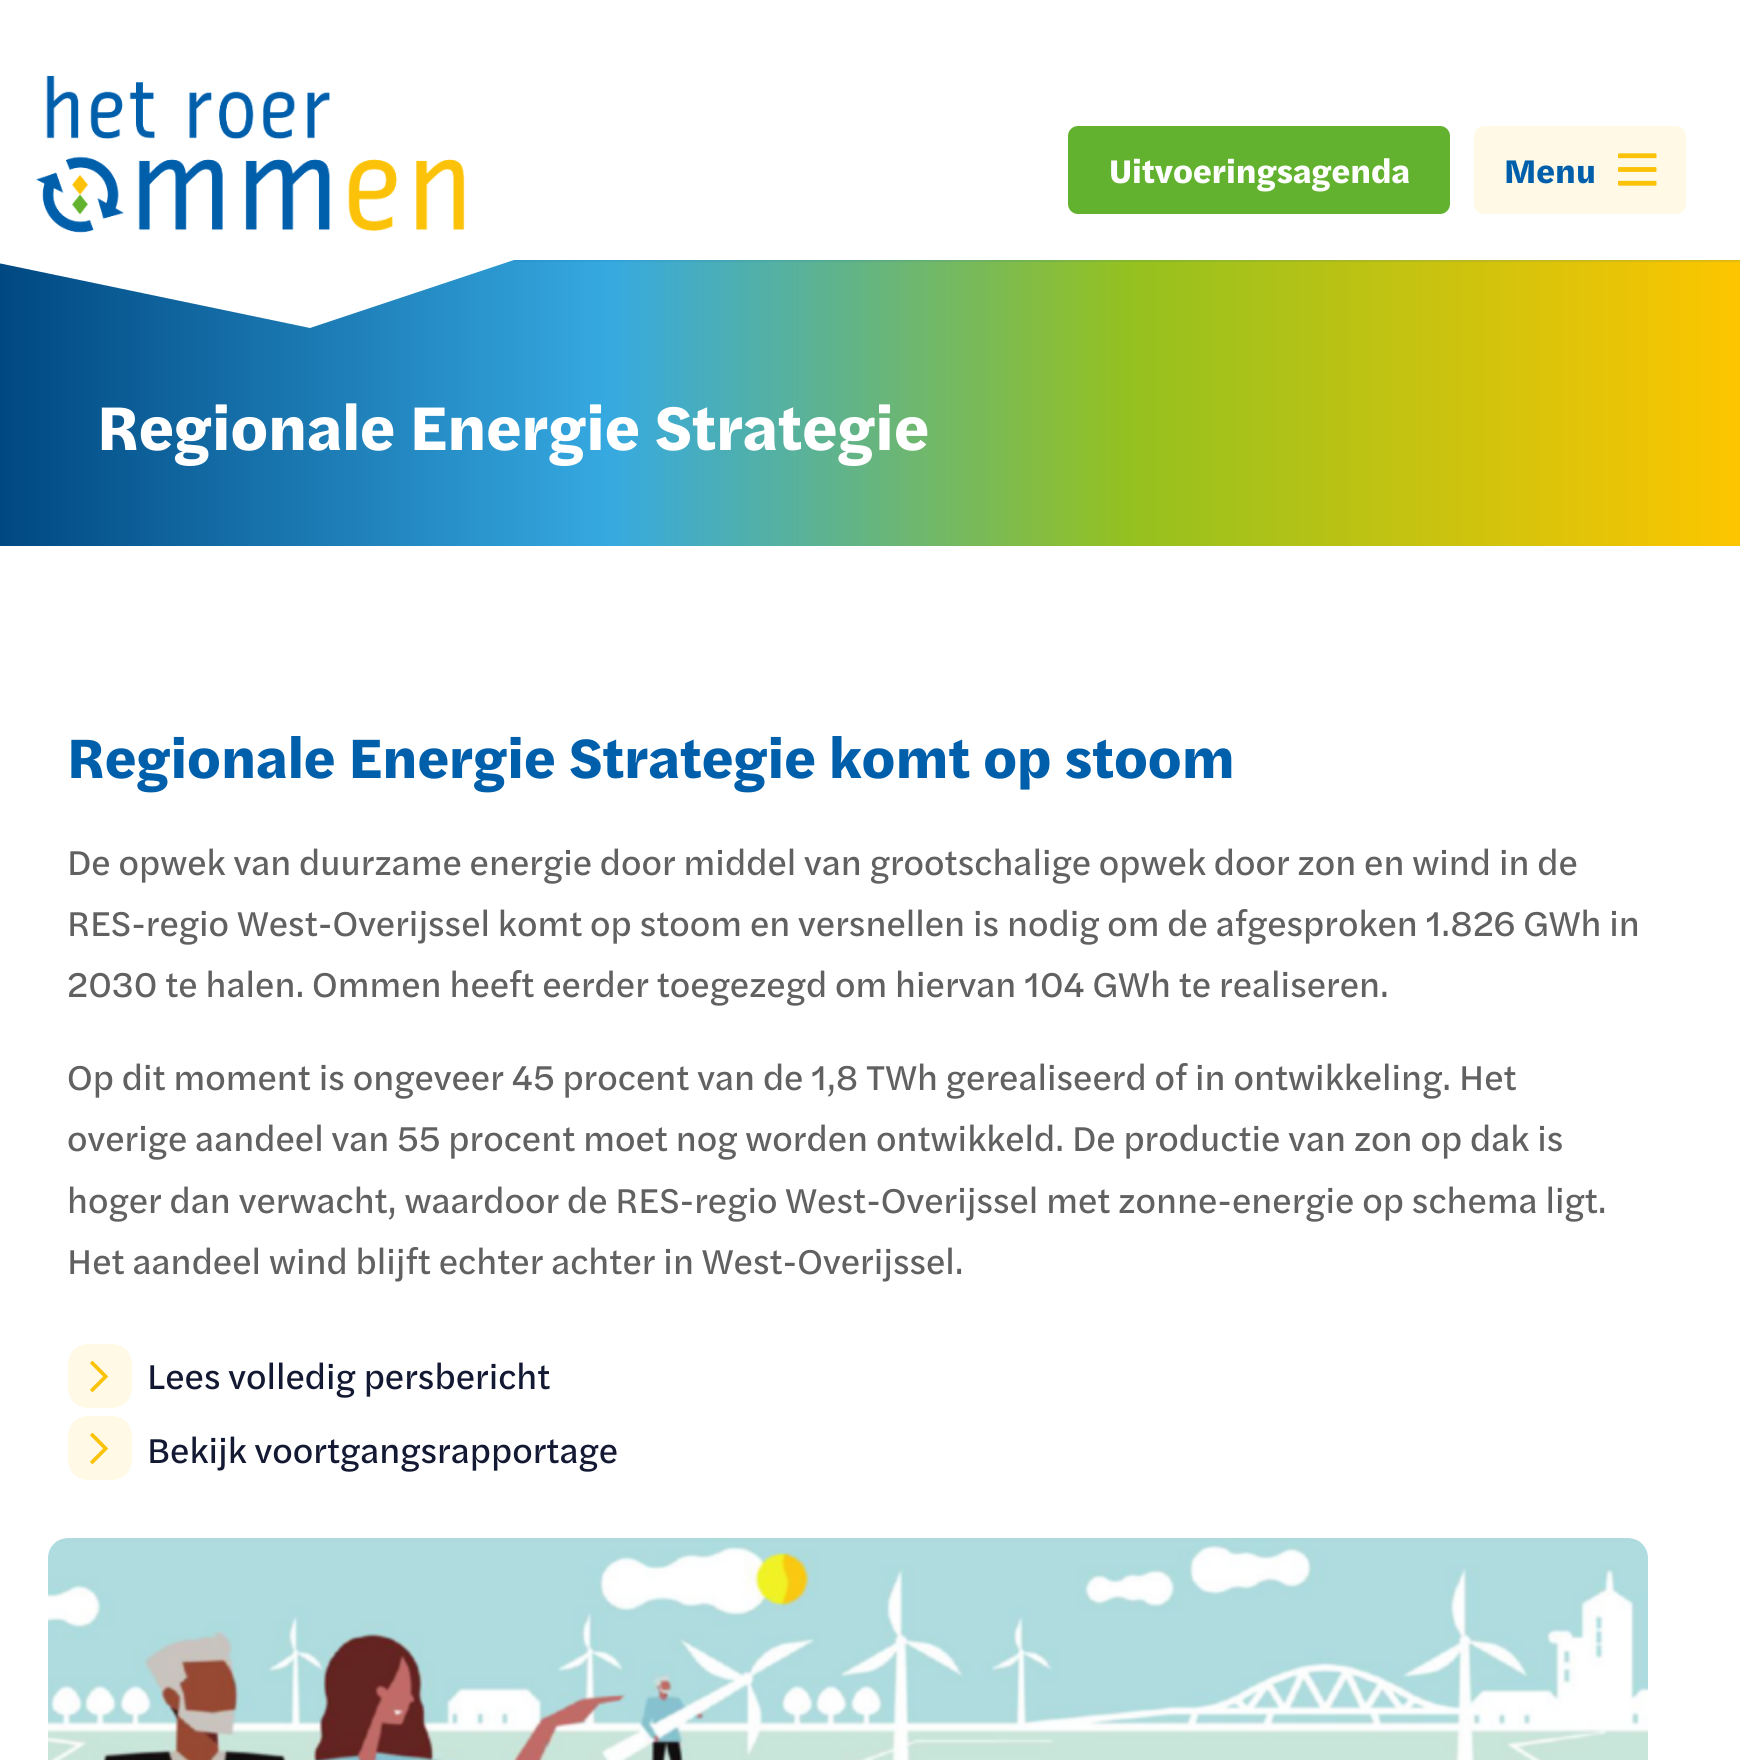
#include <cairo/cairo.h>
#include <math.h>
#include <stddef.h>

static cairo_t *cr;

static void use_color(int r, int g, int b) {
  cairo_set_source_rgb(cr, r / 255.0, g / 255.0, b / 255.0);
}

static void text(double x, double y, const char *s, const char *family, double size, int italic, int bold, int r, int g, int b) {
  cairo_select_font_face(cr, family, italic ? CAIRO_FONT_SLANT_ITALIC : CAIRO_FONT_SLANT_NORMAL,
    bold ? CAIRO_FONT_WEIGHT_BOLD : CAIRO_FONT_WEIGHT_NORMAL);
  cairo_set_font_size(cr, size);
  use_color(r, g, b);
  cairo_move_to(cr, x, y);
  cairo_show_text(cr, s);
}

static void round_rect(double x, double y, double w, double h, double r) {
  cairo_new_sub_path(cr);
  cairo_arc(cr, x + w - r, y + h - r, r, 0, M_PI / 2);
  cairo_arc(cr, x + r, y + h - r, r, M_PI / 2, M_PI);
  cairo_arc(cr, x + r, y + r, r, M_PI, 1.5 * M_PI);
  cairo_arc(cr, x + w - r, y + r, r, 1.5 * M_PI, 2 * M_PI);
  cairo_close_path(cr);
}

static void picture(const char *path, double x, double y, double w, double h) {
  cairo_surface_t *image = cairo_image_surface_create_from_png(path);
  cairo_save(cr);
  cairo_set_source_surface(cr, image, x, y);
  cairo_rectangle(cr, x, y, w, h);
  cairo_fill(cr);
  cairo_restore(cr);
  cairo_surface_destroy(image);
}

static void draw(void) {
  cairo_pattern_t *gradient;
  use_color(255, 255, 255);
  cairo_paint(cr);
  gradient = cairo_pattern_create_linear(1740, 403, 0, 403);
  cairo_pattern_add_color_stop_rgba(gradient, 0, 0.992, 0.773, 0, 1);
  cairo_pattern_add_color_stop_rgba(gradient, 0.35, 0.584, 0.757, 0.122, 1);
  cairo_pattern_add_color_stop_rgba(gradient, 0.65, 0.212, 0.663, 0.882, 1);
  cairo_pattern_add_color_stop_rgba(gradient, 1, 0, 0.282, 0.51, 1);
  cairo_set_source(cr, gradient);
  cairo_pattern_destroy(gradient);
  cairo_rectangle(cr, 0, 262, 1740, 284);
  cairo_fill(cr);
  gradient = cairo_pattern_create_linear(1740, 403, 0, 403);
  cairo_pattern_add_color_stop_rgba(gradient, 0, 0.894, 0.733, 0.067, 1);
  cairo_pattern_add_color_stop_rgba(gradient, 0.35, 0.525, 0.718, 0.176, 1);
  cairo_pattern_add_color_stop_rgba(gradient, 0.65, 0.192, 0.635, 0.863, 1);
  cairo_pattern_add_color_stop_rgba(gradient, 1, 0, 0.29, 0.525, 1);
  cairo_set_source(cr, gradient);
  cairo_pattern_destroy(gradient);
  cairo_rectangle(cr, 508, 260, 1232, 2);
  cairo_fill(cr);
  use_color(255, 255, 255);
  cairo_new_path(cr);
  cairo_move_to(cr, -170, 228);
  cairo_line_to(cr, 610, 228);
  cairo_line_to(cr, 310, 328);
  cairo_close_path(cr);
  cairo_fill(cr);
  picture("img_01.png", 36, 75, 429, 158);
  use_color(98, 178, 47);
  round_rect(1068, 126, 382, 88, 10);
  cairo_fill(cr);
  use_color(255, 249, 230);
  round_rect(1474, 126, 212, 88, 10);
  cairo_fill(cr);
  picture("img_02.png", 1618, 153, 39, 33);
  round_rect(68, 1344, 64, 64, 20);
  cairo_fill(cr);
  picture("img_03.png", 90, 1360, 18, 33);
  round_rect(68, 1416, 64, 64, 20);
  cairo_fill(cr);
  picture("img_03.png", 90, 1432, 18, 33);
  picture("img_04.png", 48, 1538, 1600, 222);
  text(1109, 183, "Uitvoeringsagenda", "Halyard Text", 34, 0, 1, 255, 255, 255);
  text(1504, 183, "Menu", "Halyard Text", 34, 0, 1, 0, 95, 171);
  text(97, 450, "Regionale Energie Strategie", "Halyard Text", 64, 0, 1, 255, 255, 255);
  text(67, 778, "Regionale Energie Strategie komt op stoom", "Halyard Text", 57.6, 0, 1, 0, 95, 171);
  text(67, 875, "De opwek van duurzame energie door middel van grootschalige opwek door zon en wind in de", "Halyard Text", 36, 0, 0, 97, 97, 97);
  text(67, 936, "RES-regio West-Overijssel komt op stoom en versnellen is nodig om de afgesproken 1.826 GWh in", "Halyard Text", 36, 0, 0, 97, 97, 97);
  text(67, 997, "2030 te halen. Ommen heeft eerder toegezegd om hiervan 104 GWh te realiseren.", "Halyard Text", 36, 0, 0, 97, 97, 97);
  text(67, 1090, "Op dit moment is ongeveer 45 procent van de 1,8 TWh gerealiseerd of in ontwikkeling. Het", "Halyard Text", 36, 0, 0, 97, 97, 97);
  text(67, 1151, "overige aandeel van 55 procent moet nog worden ontwikkeld. De productie van zon op dak is", "Halyard Text", 36, 0, 0, 97, 97, 97);
  text(67, 1213, "hoger dan verwacht, waardoor de RES-regio West-Overijssel met zonne-energie op schema ligt.", "Halyard Text", 36, 0, 0, 97, 97, 97);
  text(67, 1274, "Het aandeel wind blijft echter achter in West-Overijssel.", "Halyard Text", 36, 0, 0, 97, 97, 97);
  text(147, 1389, "Lees volledig persbericht", "Halyard Text", 36, 0, 0, 19, 25, 51);
  text(147, 1463, "Bekijk voortgangsrapportage", "Halyard Text", 36, 0, 0, 19, 25, 51);
}

int main(void) {
  cairo_surface_t *surface = cairo_image_surface_create(CAIRO_FORMAT_RGB24, 1740, 1760);
  cr = cairo_create(surface);
  cairo_font_options_t *options = cairo_font_options_create();
  cairo_font_options_set_hint_metrics(options, CAIRO_HINT_METRICS_OFF);
  cairo_font_options_set_hint_style(options, CAIRO_HINT_STYLE_NONE);
  cairo_set_font_options(cr, options);
  cairo_set_miter_limit(cr, 4);
  draw();
  cairo_surface_write_to_png(surface, "out.png");
  cairo_font_options_destroy(options);
  cairo_destroy(cr);
  cairo_surface_destroy(surface);
  return 0;
}
